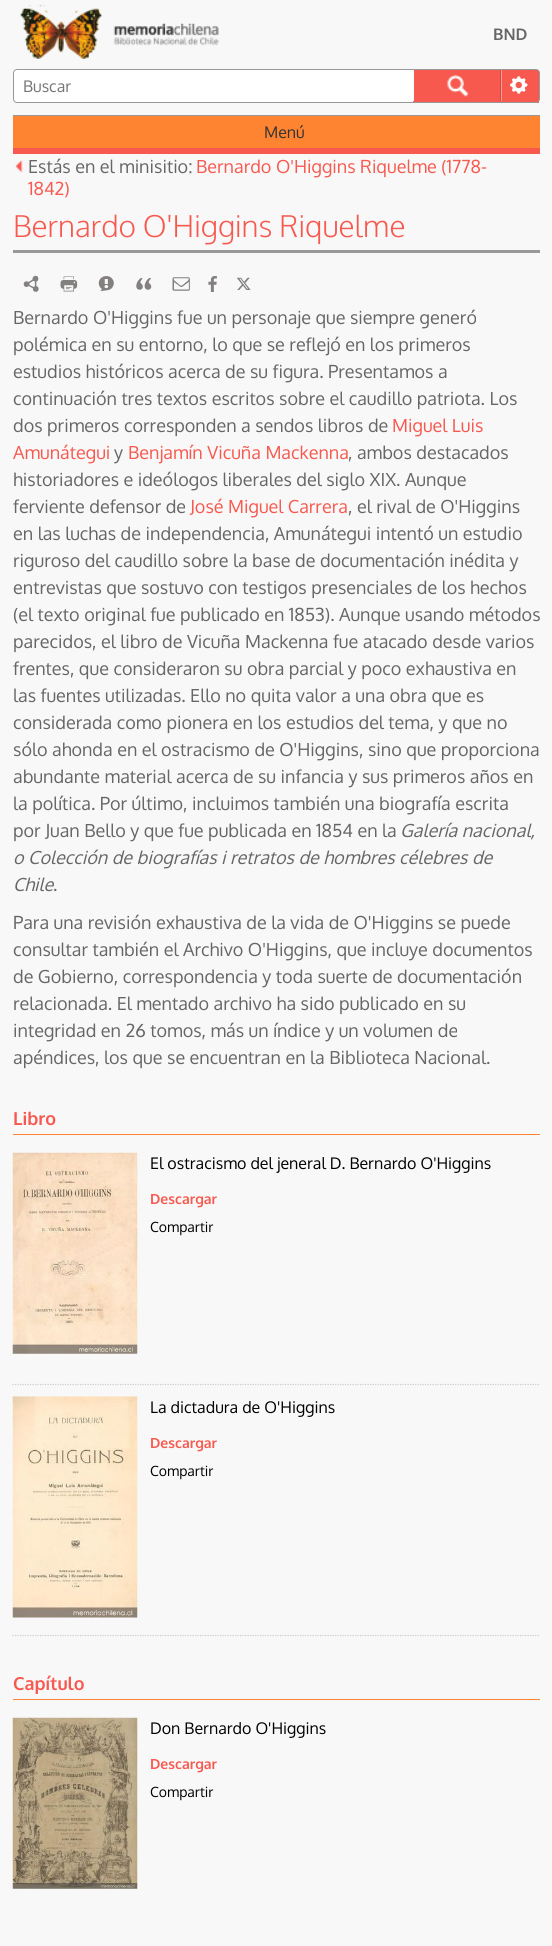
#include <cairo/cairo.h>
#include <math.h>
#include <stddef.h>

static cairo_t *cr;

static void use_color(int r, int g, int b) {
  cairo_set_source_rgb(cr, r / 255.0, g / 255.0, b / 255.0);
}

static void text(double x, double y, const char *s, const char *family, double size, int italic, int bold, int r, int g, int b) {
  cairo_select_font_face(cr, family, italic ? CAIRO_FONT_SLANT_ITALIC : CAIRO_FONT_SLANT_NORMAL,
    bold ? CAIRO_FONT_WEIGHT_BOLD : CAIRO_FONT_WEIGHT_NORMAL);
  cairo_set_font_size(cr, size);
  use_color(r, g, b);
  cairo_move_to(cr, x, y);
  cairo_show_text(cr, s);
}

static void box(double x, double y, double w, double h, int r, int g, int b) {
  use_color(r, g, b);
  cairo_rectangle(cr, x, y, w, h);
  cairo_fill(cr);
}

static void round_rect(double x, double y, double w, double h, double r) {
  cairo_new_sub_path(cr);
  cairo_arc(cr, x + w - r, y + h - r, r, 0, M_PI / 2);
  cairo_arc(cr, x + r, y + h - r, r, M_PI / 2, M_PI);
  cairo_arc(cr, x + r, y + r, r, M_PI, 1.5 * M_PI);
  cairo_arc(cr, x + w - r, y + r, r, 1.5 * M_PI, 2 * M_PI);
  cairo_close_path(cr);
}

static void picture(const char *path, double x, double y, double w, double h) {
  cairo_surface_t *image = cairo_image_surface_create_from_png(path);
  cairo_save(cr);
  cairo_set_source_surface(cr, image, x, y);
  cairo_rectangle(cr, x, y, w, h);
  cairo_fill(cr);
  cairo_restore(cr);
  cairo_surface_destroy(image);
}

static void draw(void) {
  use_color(248, 248, 248);
  cairo_paint(cr);
  picture("img_01.png", 20, 5, 199, 54);
  use_color(255, 255, 255);
  round_rect(13, 69, 527, 34, 4);
  cairo_fill(cr);
  box(413, 70, 126, 33, 247, 89, 79);
  round_rect(13.5, 69.5, 526, 33, 3.5);
  use_color(152, 152, 152);
  cairo_set_line_width(cr, 1);
  cairo_stroke(cr);
  use_color(255, 255, 255);
  cairo_new_path(cr);
  cairo_move_to(cr, 18, 70);
  cairo_line_to(cr, 414, 70);
  cairo_line_to(cr, 414, 101);
  cairo_line_to(cr, 18, 101);
  cairo_curve_to(cr, 16, 101, 14, 99, 14, 97);
  cairo_line_to(cr, 14, 74);
  cairo_curve_to(cr, 14, 72, 16, 70, 18, 70);
  cairo_close_path(cr);
  cairo_fill(cr);
  picture("img_02.png", 447, 74, 22, 23);
  box(500, 70, 1, 31, 210, 76, 67);
  use_color(247, 89, 79);
  cairo_new_path(cr);
  cairo_move_to(cr, 501, 70);
  cairo_line_to(cr, 535, 70);
  cairo_curve_to(cr, 537, 70, 539, 72, 539, 74);
  cairo_line_to(cr, 539, 97);
  cairo_curve_to(cr, 539, 99, 537, 101, 535, 101);
  cairo_line_to(cr, 501, 101);
  cairo_close_path(cr);
  cairo_fill(cr);
  box(501, 70, 1, 31, 250, 155, 149);
  picture("img_03.png", 510, 76, 18, 18);
  box(13, 116, 527, 32, 255, 132, 49);
  box(13, 115, 527, 1, 152, 152, 152);
  box(13, 148, 527, 6, 247, 89, 79);
  picture("img_04.png", 15, 160, 8, 13);
  box(13, 250, 527, 3, 152, 152, 152);
  picture("img_05.png", 23, 275, 16, 17);
  picture("img_06.png", 60, 276, 18, 16);
  picture("img_07.png", 98, 276, 16, 15);
  picture("img_08.png", 136, 278, 16, 12);
  picture("img_09.png", 172, 277, 18, 14);
  picture("img_10.png", 208, 276, 9, 16);
  picture("img_11.png", 237, 277, 14, 13);
  box(13, 1134, 527, 1, 255, 132, 49);
  cairo_new_path(cr);
  cairo_move_to(cr, 12.5, 1384.5);
  cairo_line_to(cr, 540, 1384.5);
  use_color(204, 204, 204);
  cairo_set_line_width(cr, 1.2);
  cairo_set_dash(cr, (double[]){1.25, 1.25}, 2, 0);
  cairo_stroke(cr);
  picture("img_12.png", 12, 1152, 126, 202);
  cairo_new_path(cr);
  cairo_move_to(cr, 12.5, 1635.5);
  cairo_line_to(cr, 540, 1635.5);
  cairo_stroke(cr);
  picture("img_13.png", 12, 1396, 126, 222);
  box(13, 1699, 527, 1, 255, 132, 49);
  picture("img_14.png", 12, 1717, 126, 172);
  text(493, 40, "BND", "Oxygen", 16, 0, 1, 102, 102, 102);
  text(23, 92, "Buscar", "Oxygen", 16, 0, 0, 117, 117, 117);
  text(264, 138, "Menú", "Oxygen", 16, 0, 0, 51, 51, 51);
  text(28, 173, "Estás en el minisitio:", "Oxygen", 18, 0, 0, 102, 102, 102);
  text(196, 173, "Bernardo O'Higgins Riquelme (1778-", "Oxygen", 18, 0, 0, 247, 89, 79);
  text(28, 195, "1842)", "Oxygen", 18, 0, 0, 247, 89, 79);
  text(13, 237, "Bernardo O'Higgins Riquelme", "Oxygen Light", 30, 0, 0, 247, 89, 79);
  text(13, 324, "Bernardo O'Higgins fue un personaje que siempre generó", "Oxygen", 18, 0, 0, 102, 102, 102);
  text(13, 351, "polémica en su entorno, lo que se reflejó en los primeros", "Oxygen", 18, 0, 0, 102, 102, 102);
  text(13, 378, "estudios históricos acerca de su figura. Presentamos a", "Oxygen", 18, 0, 0, 102, 102, 102);
  text(13, 405, "continuación tres textos escritos sobre el caudillo patriota. Los", "Oxygen", 18, 0, 0, 102, 102, 102);
  text(13, 432, "dos primeros corresponden a sendos libros de", "Oxygen", 18, 0, 0, 102, 102, 102);
  text(392, 432, "Miguel Luis", "Oxygen", 18, 0, 0, 247, 89, 79);
  text(13, 459, "Amunátegui", "Oxygen", 18, 0, 0, 247, 89, 79);
  text(114, 459, "y", "Oxygen", 18, 0, 0, 102, 102, 102);
  text(128, 459, "Benjamín Vicuña Mackenna", "Oxygen", 18, 0, 0, 247, 89, 79);
  text(348, 459, ", ambos destacados", "Oxygen", 18, 0, 0, 102, 102, 102);
  text(13, 486, "historiadores e ideólogos liberales del siglo XIX. Aunque", "Oxygen", 18, 0, 0, 102, 102, 102);
  text(13, 513, "ferviente defensor de", "Oxygen", 18, 0, 0, 102, 102, 102);
  text(190, 513, "José Miguel Carrera", "Oxygen", 18, 0, 0, 247, 89, 79);
  text(348, 513, ", el rival de O'Higgins", "Oxygen", 18, 0, 0, 102, 102, 102);
  text(13, 540, "en las luchas de independencia, Amunátegui intentó un estudio", "Oxygen", 18, 0, 0, 102, 102, 102);
  text(13, 567, "riguroso del caudillo sobre la base de documentación inédita y", "Oxygen", 18, 0, 0, 102, 102, 102);
  text(13, 594, "entrevistas que sostuvo con testigos presenciales de los hechos", "Oxygen", 18, 0, 0, 102, 102, 102);
  text(13, 621, "(el texto original fue publicado en 1853). Aunque usando métodos", "Oxygen", 18, 0, 0, 102, 102, 102);
  text(13, 648, "parecidos, el libro de Vicuña Mackenna fue atacado desde varios", "Oxygen", 18, 0, 0, 102, 102, 102);
  text(13, 675, "frentes, que consideraron su obra parcial y poco exhaustiva en", "Oxygen", 18, 0, 0, 102, 102, 102);
  text(13, 702, "las fuentes utilizadas. Ello no quita valor a una obra que es", "Oxygen", 18, 0, 0, 102, 102, 102);
  text(13, 729, "considerada como pionera en los estudios del tema, y que no", "Oxygen", 18, 0, 0, 102, 102, 102);
  text(13, 756, "sólo ahonda en el ostracismo de O'Higgins, sino que proporciona", "Oxygen", 18, 0, 0, 102, 102, 102);
  text(13, 783, "abundante material acerca de su infancia y sus primeros años en", "Oxygen", 18, 0, 0, 102, 102, 102);
  text(13, 810, "la política. Por último, incluimos también una biografía escrita", "Oxygen", 18, 0, 0, 102, 102, 102);
  text(13, 837, "por Juan Bello y que fue publicada en 1854 en la", "Oxygen", 18, 0, 0, 102, 102, 102);
  text(400, 837, "Galería nacional,", "Oxygen", 18, 1, 0, 102, 102, 102);
  text(13, 864, "o Colección de biografías i retratos de hombres célebres de", "Oxygen", 18, 1, 0, 102, 102, 102);
  text(13, 891, "Chile", "Oxygen", 18, 1, 0, 102, 102, 102);
  text(53, 891, ".", "Oxygen", 18, 0, 0, 102, 102, 102);
  text(13, 929, "Para una revisión exhaustiva de la vida de O'Higgins se puede", "Oxygen", 18, 0, 0, 102, 102, 102);
  text(13, 956, "consultar también el Archivo O'Higgins, que incluye documentos", "Oxygen", 18, 0, 0, 102, 102, 102);
  text(13, 983, "de Gobierno, correspondencia y toda suerte de documentación", "Oxygen", 18, 0, 0, 102, 102, 102);
  text(13, 1010, "relacionada. El mentado archivo ha sido publicado en su", "Oxygen", 18, 0, 0, 102, 102, 102);
  text(13, 1037, "integridad en 26 tomos, más un índice y un volumen de", "Oxygen", 18, 0, 0, 102, 102, 102);
  text(13, 1064, "apéndices, los que se encuentran en la Biblioteca Nacional.", "Oxygen", 18, 0, 0, 102, 102, 102);
  text(13, 1125, "Libro", "Oxygen", 18, 0, 1, 247, 89, 79);
  text(150, 1169, "El ostracismo del jeneral D. Bernardo O'Higgins", "Oxygen", 16, 0, 0, 0, 0, 0);
  text(150, 1204, "Descargar", "Oxygen", 14, 0, 1, 247, 89, 79);
  text(150, 1232, "Compartir", "Oxygen", 14, 0, 0, 0, 0, 0);
  text(150, 1413, "La dictadura de O'Higgins", "Oxygen", 16, 0, 0, 0, 0, 0);
  text(150, 1448, "Descargar", "Oxygen", 14, 0, 1, 247, 89, 79);
  text(150, 1476, "Compartir", "Oxygen", 14, 0, 0, 0, 0, 0);
  text(13, 1690, "Capítulo", "Oxygen", 18, 0, 1, 247, 89, 79);
  text(150, 1734, "Don Bernardo O'Higgins", "Oxygen", 16, 0, 0, 0, 0, 0);
  text(150, 1769, "Descargar", "Oxygen", 14, 0, 1, 247, 89, 79);
  text(150, 1797, "Compartir", "Oxygen", 14, 0, 0, 0, 0, 0);
}

int main(void) {
  cairo_surface_t *surface = cairo_image_surface_create(CAIRO_FORMAT_RGB24, 552, 1946);
  cr = cairo_create(surface);
  cairo_font_options_t *options = cairo_font_options_create();
  cairo_font_options_set_hint_metrics(options, CAIRO_HINT_METRICS_OFF);
  cairo_font_options_set_hint_style(options, CAIRO_HINT_STYLE_NONE);
  cairo_set_font_options(cr, options);
  cairo_set_miter_limit(cr, 4);
  draw();
  cairo_surface_write_to_png(surface, "out.png");
  cairo_font_options_destroy(options);
  cairo_destroy(cr);
  cairo_surface_destroy(surface);
  return 0;
}
